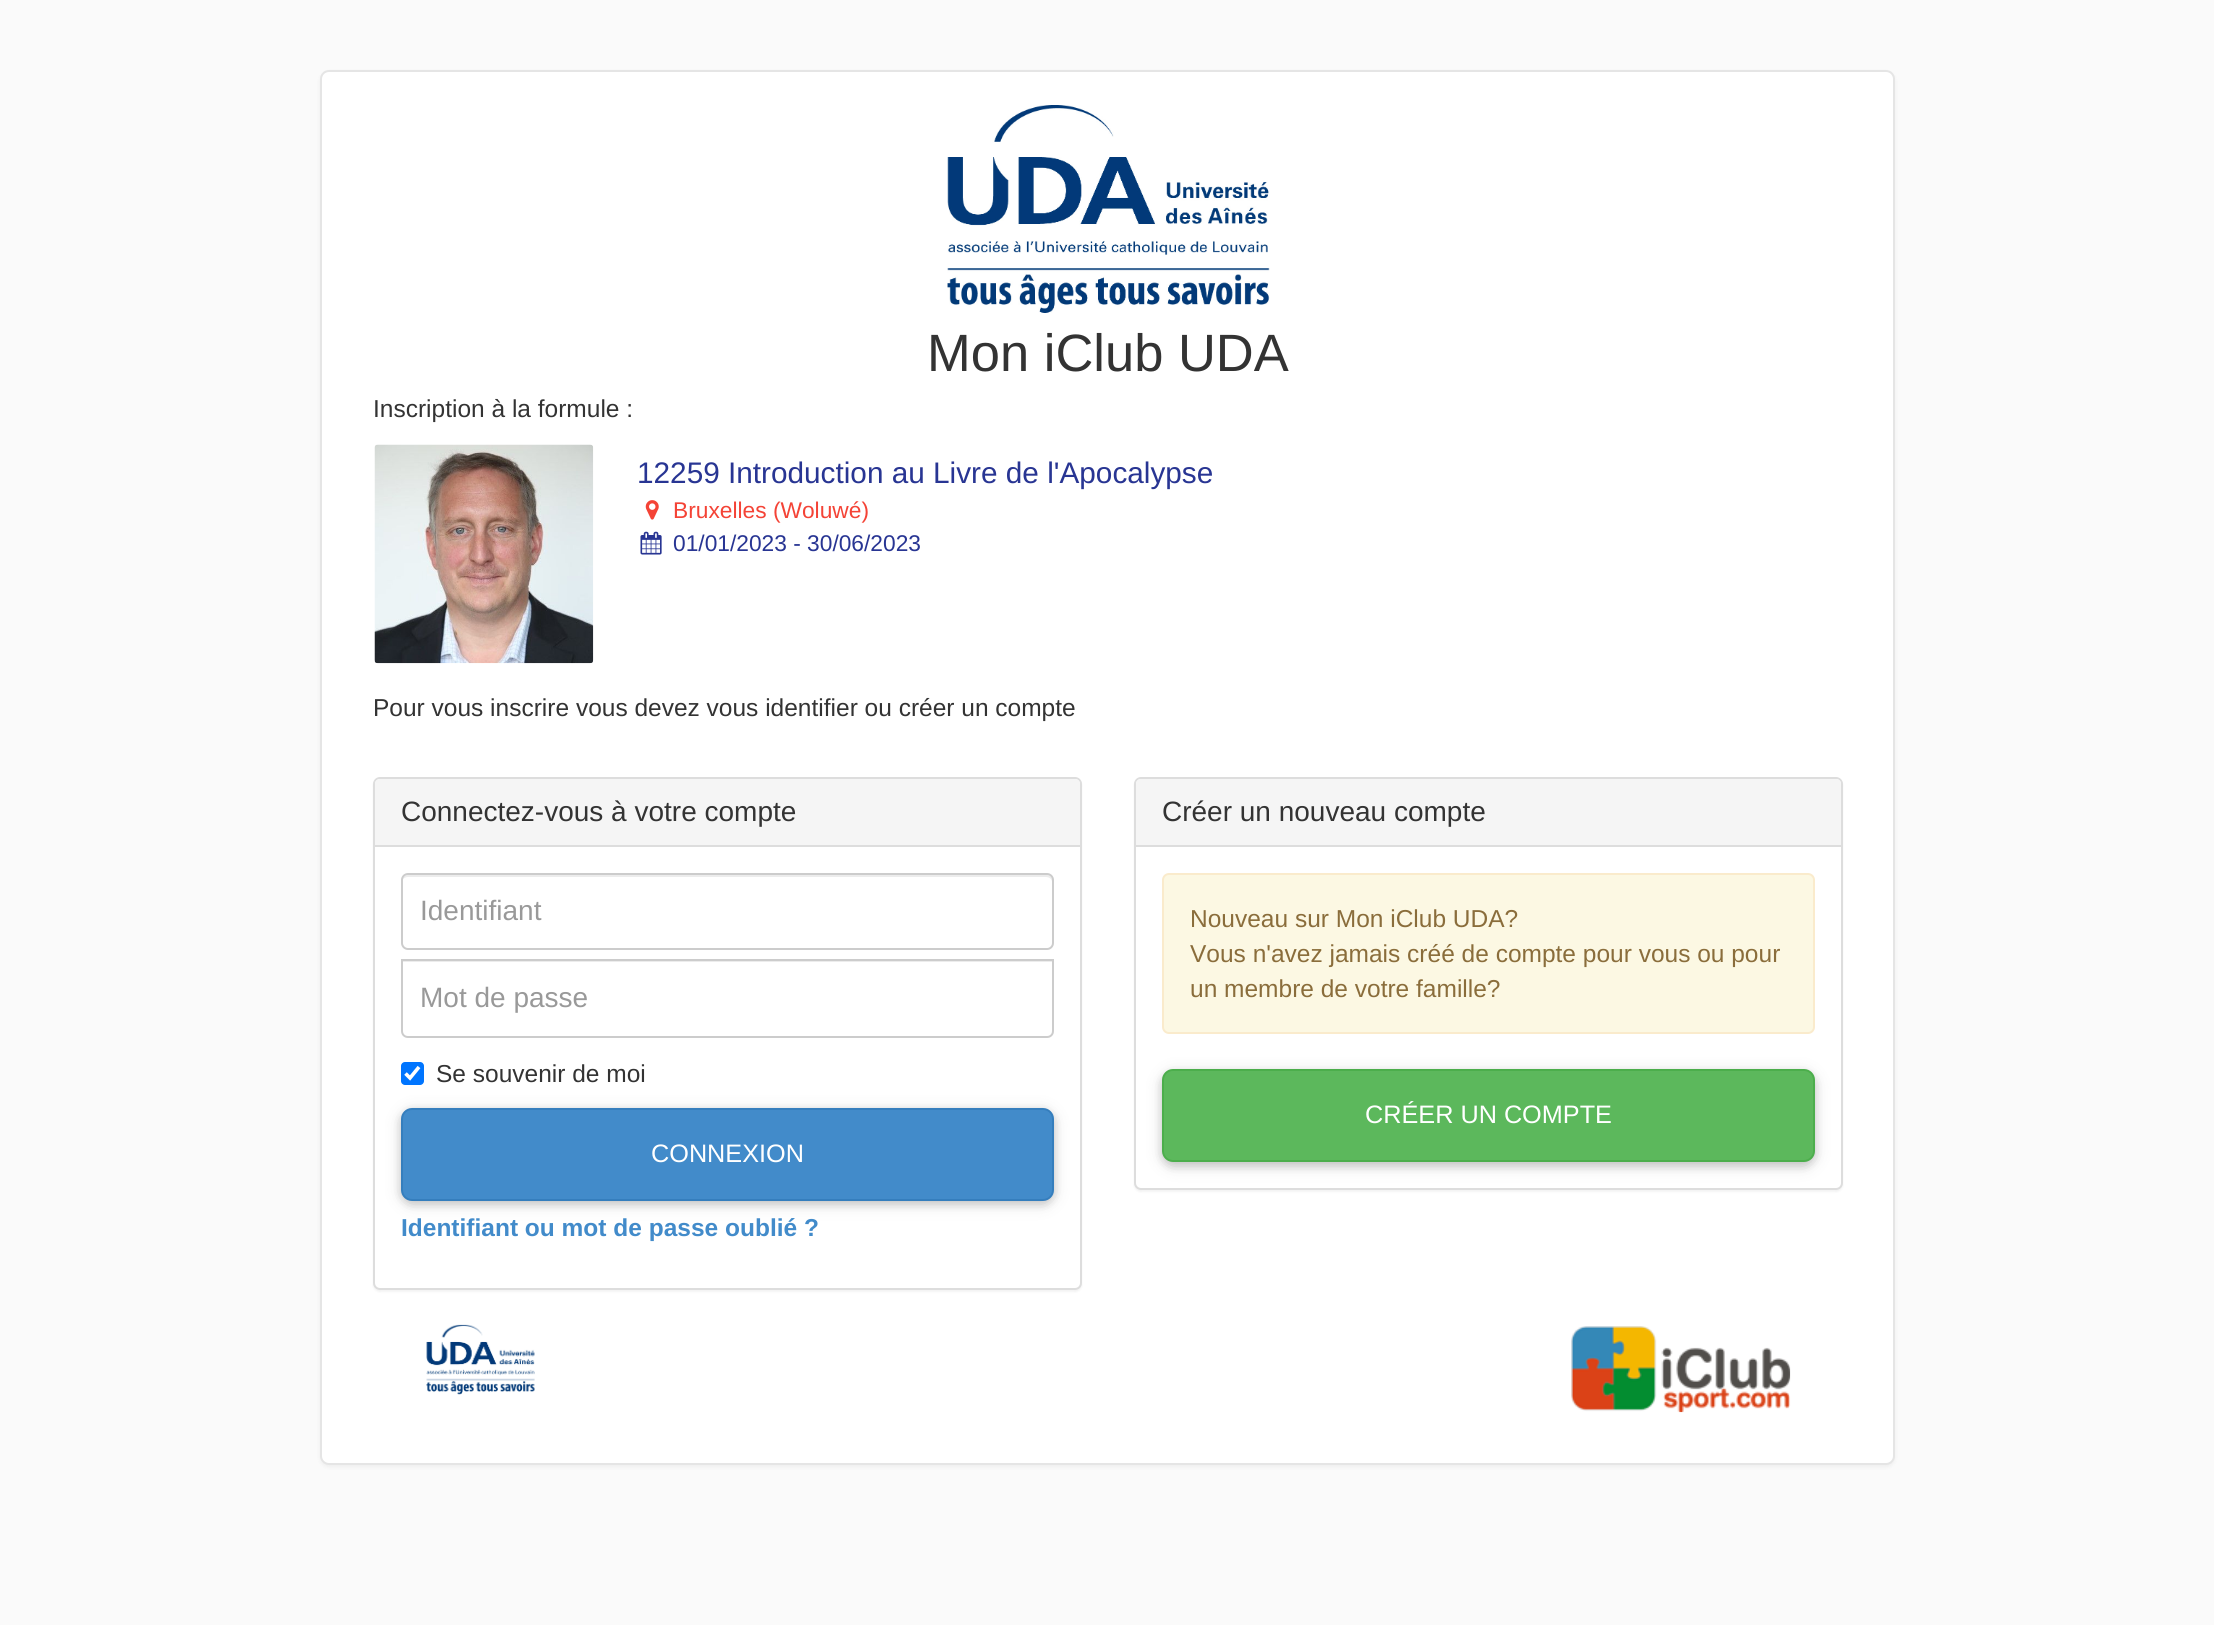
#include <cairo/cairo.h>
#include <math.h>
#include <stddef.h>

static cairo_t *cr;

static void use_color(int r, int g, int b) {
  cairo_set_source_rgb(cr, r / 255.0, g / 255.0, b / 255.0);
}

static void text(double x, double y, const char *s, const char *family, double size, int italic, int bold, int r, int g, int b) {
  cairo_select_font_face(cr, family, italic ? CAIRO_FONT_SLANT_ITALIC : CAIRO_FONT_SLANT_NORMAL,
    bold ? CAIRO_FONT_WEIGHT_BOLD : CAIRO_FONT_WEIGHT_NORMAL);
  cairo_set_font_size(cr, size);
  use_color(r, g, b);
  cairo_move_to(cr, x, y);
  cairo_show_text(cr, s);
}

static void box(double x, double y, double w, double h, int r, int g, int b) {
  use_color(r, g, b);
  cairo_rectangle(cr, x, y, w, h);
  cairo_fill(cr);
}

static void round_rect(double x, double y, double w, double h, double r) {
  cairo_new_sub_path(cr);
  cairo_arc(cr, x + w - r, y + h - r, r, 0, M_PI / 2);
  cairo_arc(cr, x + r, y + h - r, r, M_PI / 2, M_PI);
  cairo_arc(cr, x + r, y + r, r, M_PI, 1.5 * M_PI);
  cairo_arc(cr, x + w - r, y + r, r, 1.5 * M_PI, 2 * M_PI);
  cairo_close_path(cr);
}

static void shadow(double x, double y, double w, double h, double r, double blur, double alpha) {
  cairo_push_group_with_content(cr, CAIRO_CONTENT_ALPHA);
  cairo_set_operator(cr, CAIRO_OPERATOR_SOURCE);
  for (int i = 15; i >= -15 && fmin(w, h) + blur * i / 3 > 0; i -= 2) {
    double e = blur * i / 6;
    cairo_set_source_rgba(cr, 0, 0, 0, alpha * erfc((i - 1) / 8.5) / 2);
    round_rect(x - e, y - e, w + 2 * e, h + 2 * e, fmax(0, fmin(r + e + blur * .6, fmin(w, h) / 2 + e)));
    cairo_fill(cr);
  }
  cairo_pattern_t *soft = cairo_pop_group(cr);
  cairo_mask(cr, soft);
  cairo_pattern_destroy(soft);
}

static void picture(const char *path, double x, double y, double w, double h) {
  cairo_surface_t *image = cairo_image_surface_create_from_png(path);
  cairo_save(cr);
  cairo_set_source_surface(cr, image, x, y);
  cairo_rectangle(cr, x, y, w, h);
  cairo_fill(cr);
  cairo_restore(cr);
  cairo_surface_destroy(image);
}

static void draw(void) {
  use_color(250, 250, 250);
  cairo_paint(cr);
  use_color(0, 0, 0);
  shadow(320, 72, 1575, 1395, 9, 2, 0.05);
  use_color(255, 255, 255);
  round_rect(321, 71, 1573, 1393, 8);
  cairo_fill_preserve(cr);
  use_color(229, 229, 229);
  cairo_stroke(cr);
  picture("img_01.png", 947, 105, 323, 208);
  picture("img_02.png", 374, 444, 220, 220);
  picture("img_03.png", 645, 500, 14, 20);
  picture("img_04.png", 640, 531, 22, 24);
  use_color(0, 0, 0);
  shadow(373, 779, 709, 513, 7, 1, 0.05);
  use_color(255, 255, 255);
  round_rect(374, 778, 707, 511, 6);
  cairo_fill_preserve(cr);
  use_color(221, 221, 221);
  cairo_stroke(cr);
  use_color(245, 245, 245);
  cairo_new_path(cr);
  cairo_move_to(cr, 380, 779);
  cairo_line_to(cr, 1075, 779);
  cairo_curve_to(cr, 1078, 779, 1080, 781, 1080, 784);
  cairo_line_to(cr, 1080, 847);
  cairo_line_to(cr, 375, 847);
  cairo_line_to(cr, 375, 784);
  cairo_curve_to(cr, 375, 781, 377, 779, 380, 779);
  cairo_close_path(cr);
  cairo_fill(cr);
  box(375, 845, 705, 2, 221, 221, 221);
  use_color(236, 236, 236);
  cairo_new_path(cr);
  cairo_move_to(cr, 408, 877);
  cairo_line_to(cr, 1046, 877);
  cairo_curve_to(cr, 1049, 877, 1052, 879, 1052, 882);
  cairo_line_to(cr, 1052, 880);
  cairo_curve_to(cr, 1052, 877, 1050, 875, 1047, 875);
  cairo_line_to(cr, 408, 875);
  cairo_curve_to(cr, 406, 875, 403, 877, 403, 879);
  cairo_curve_to(cr, 404, 878, 406, 877, 408, 877);
  cairo_close_path(cr);
  cairo_fill(cr);
  round_rect(402, 874, 651, 75, 6);
  use_color(204, 204, 204);
  cairo_stroke(cr);
  box(403, 961, 649, 1, 236, 236, 236);
  cairo_new_path(cr);
  cairo_move_to(cr, 402, 960);
  cairo_line_to(cr, 1053, 960);
  cairo_line_to(cr, 1053, 1031);
  cairo_curve_to(cr, 1053, 1034.5, 1050.5, 1037, 1047, 1037);
  cairo_line_to(cr, 408, 1037);
  cairo_curve_to(cr, 404.5, 1037, 402, 1034.5, 402, 1031);
  cairo_close_path(cr);
  use_color(204, 204, 204);
  cairo_stroke(cr);
  use_color(0, 0, 0);
  shadow(401, 1111, 653, 93, 11, 9, 0.12);
  use_color(0, 117, 255);
  round_rect(401, 1062, 23, 23, 4);
  cairo_fill(cr);
  cairo_new_path(cr);
  cairo_move_to(cr, 405.5, 1073.5);
  cairo_line_to(cr, 410, 1078);
  cairo_line_to(cr, 419, 1067);
  use_color(255, 255, 255);
  cairo_set_line_width(cr, 3.6);
  cairo_stroke(cr);
  use_color(0, 0, 0);
  shadow(401, 1111, 653, 93, 11, 4.5, 0.16);
  use_color(66, 139, 202);
  round_rect(402, 1109, 651, 91, 10);
  cairo_fill_preserve(cr);
  use_color(53, 126, 189);
  cairo_set_line_width(cr, 2);
  cairo_stroke(cr);
  use_color(0, 0, 0);
  shadow(1134, 779, 709, 413, 7, 1, 0.05);
  use_color(255, 255, 255);
  round_rect(1135, 778, 707, 411, 6);
  cairo_fill_preserve(cr);
  use_color(221, 221, 221);
  cairo_stroke(cr);
  use_color(245, 245, 245);
  cairo_new_path(cr);
  cairo_move_to(cr, 1141, 779);
  cairo_line_to(cr, 1836, 779);
  cairo_curve_to(cr, 1839, 779, 1841, 781, 1841, 784);
  cairo_line_to(cr, 1841, 847);
  cairo_line_to(cr, 1136, 847);
  cairo_line_to(cr, 1136, 784);
  cairo_curve_to(cr, 1136, 781, 1138, 779, 1141, 779);
  cairo_close_path(cr);
  cairo_fill(cr);
  box(1136, 845, 705, 2, 221, 221, 221);
  use_color(252, 248, 227);
  round_rect(1163, 874, 651, 159, 6);
  cairo_fill_preserve(cr);
  use_color(250, 235, 204);
  cairo_stroke(cr);
  use_color(0, 0, 0);
  shadow(1162, 1073, 653, 93, 11, 9, 0.12);
  shadow(1162, 1073, 653, 93, 11, 4.5, 0.16);
  use_color(92, 184, 92);
  round_rect(1163, 1070, 651, 91, 10);
  cairo_fill_preserve(cr);
  use_color(76, 174, 76);
  cairo_stroke(cr);
  picture("img_05.png", 426, 1324, 109, 71);
  picture("img_06.png", 1571, 1326, 220, 87);
  text(927, 371, "Mon iClub UDA", "Liberation Sans", 52.5, 0, 0, 51, 51, 51);
  text(373, 417, "Inscription à la formule :", "Liberation Sans", 24.5, 0, 0, 51, 51, 51);
  text(637, 483, "12259 Introduction au Livre de l'Apocalypse", "Liberation Sans", 29.75, 0, 0, 40, 53, 147);
  text(673, 518, "Bruxelles (Woluwé)", "Liberation Sans", 22.75, 0, 0, 244, 67, 54);
  text(673, 551, "01/01/2023 - 30/06/2023", "Liberation Sans", 22.75, 0, 0, 40, 53, 147);
  text(373, 716, "Pour vous inscrire vous devez vous identifier ou créer un compte", "Liberation Sans", 24.5, 0, 0, 51, 51, 51);
  text(401, 821, "Connectez-vous à votre compte", "Liberation Sans", 28, 0, 0, 51, 51, 51);
  text(420, 920, "Identifiant", "Liberation Sans", 28, 0, 0, 153, 153, 153);
  text(420, 1007, "Mot de passe", "Liberation Sans", 28, 0, 0, 153, 153, 153);
  text(436, 1082, "Se souvenir de moi", "Liberation Sans", 24.5, 0, 0, 51, 51, 51);
  text(651, 1162, "CONNEXION", "Liberation Sans", 25.25, 0, 0, 255, 255, 255);
  text(401, 1236, "Identifiant ou mot de passe oublié ?", "Liberation Sans", 24.5, 0, 1, 66, 139, 202);
  text(1162, 821, "Créer un nouveau compte", "Liberation Sans", 28, 0, 0, 51, 51, 51);
  text(1190, 927, "Nouveau sur Mon iClub UDA?", "Liberation Sans", 24.5, 0, 0, 138, 109, 59);
  text(1190, 962, "Vous n'avez jamais créé de compte pour vous ou pour", "Liberation Sans", 24.5, 0, 0, 138, 109, 59);
  text(1190, 997, "un membre de votre famille?", "Liberation Sans", 24.5, 0, 0, 138, 109, 59);
  text(1365, 1123, "CRÉER UN COMPTE", "Liberation Sans", 25.25, 0, 0, 255, 255, 255);
}

int main(void) {
  cairo_surface_t *surface = cairo_image_surface_create(CAIRO_FORMAT_RGB24, 2214, 1625);
  cr = cairo_create(surface);
  cairo_font_options_t *options = cairo_font_options_create();
  cairo_font_options_set_hint_metrics(options, CAIRO_HINT_METRICS_OFF);
  cairo_font_options_set_hint_style(options, CAIRO_HINT_STYLE_NONE);
  cairo_set_font_options(cr, options);
  cairo_set_miter_limit(cr, 4);
  draw();
  cairo_surface_write_to_png(surface, "out.png");
  cairo_font_options_destroy(options);
  cairo_destroy(cr);
  cairo_surface_destroy(surface);
  return 0;
}
